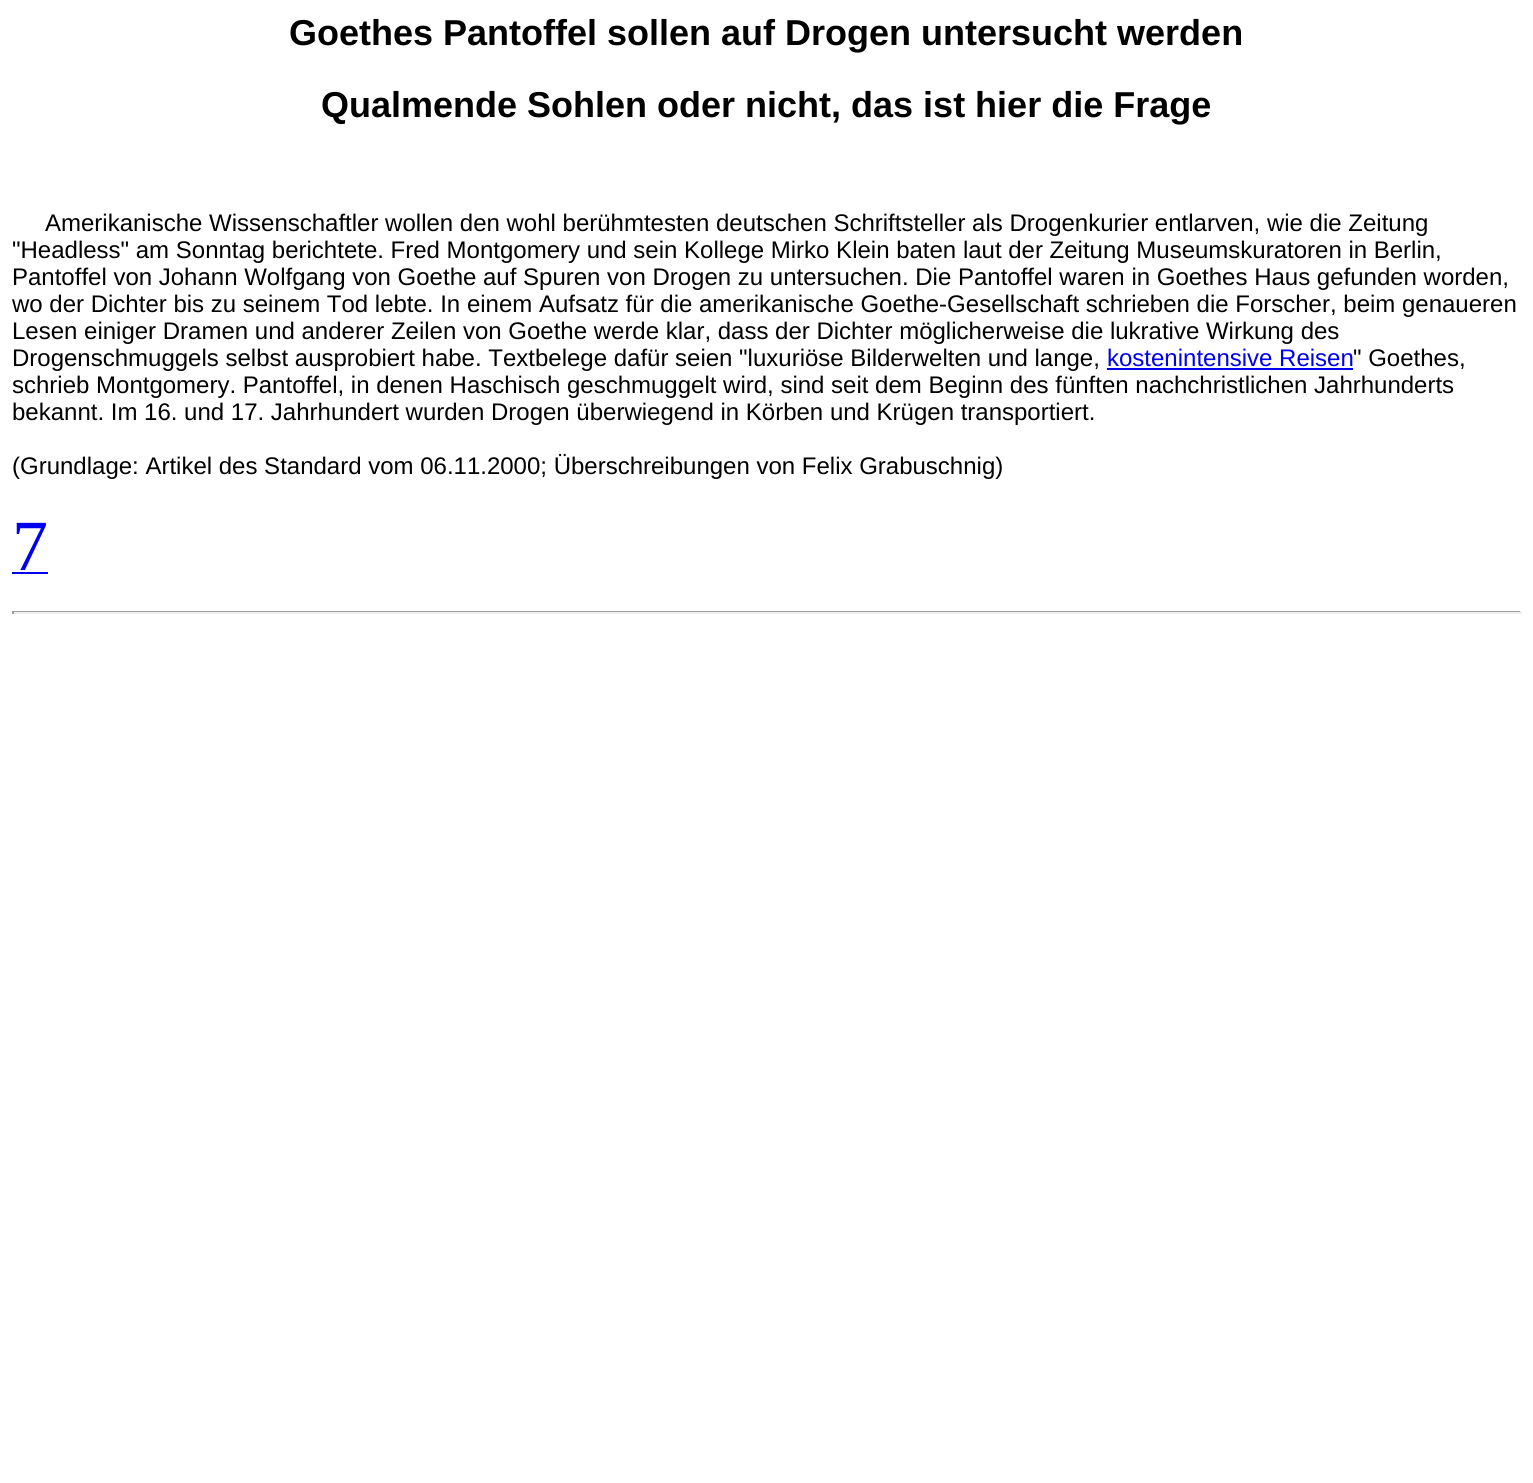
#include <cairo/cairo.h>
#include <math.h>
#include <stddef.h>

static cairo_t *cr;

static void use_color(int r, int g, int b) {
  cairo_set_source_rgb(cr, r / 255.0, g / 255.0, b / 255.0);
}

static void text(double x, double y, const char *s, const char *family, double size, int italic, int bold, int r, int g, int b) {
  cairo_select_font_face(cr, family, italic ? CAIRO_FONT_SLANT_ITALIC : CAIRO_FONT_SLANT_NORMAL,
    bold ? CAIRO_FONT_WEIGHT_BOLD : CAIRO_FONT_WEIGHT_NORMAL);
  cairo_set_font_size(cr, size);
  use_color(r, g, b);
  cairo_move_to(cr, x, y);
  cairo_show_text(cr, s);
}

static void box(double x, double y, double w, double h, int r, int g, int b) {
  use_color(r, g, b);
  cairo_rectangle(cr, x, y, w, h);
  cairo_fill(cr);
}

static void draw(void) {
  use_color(255, 255, 255);
  cairo_paint(cr);
  box(1107, 368, 246, 2, 0, 0, 238);
  box(12, 572, 36, 2, 0, 0, 238);
  box(12, 611, 1509, 1, 159, 159, 159);
  box(1520, 611, 2, 3, 238, 238, 238);
  box(12, 612, 1509, 2, 238, 238, 238);
  box(12, 611, 2, 3, 159, 159, 159);
  text(289, 45, "Goethes Pantoffel sollen auf Drogen untersucht werden", "Liberation Sans", 36, 0, 1, 0, 0, 0);
  text(321, 117, "Qualmende Sohlen oder nicht, das ist hier die Frage", "Liberation Sans", 36, 0, 1, 0, 0, 0);
  text(45, 231, "Amerikanische Wissenschaftler wollen den wohl berühmtesten deutschen Schriftsteller als Drogenkurier entlarven, wie die Zeitung", "Liberation Sans", 24, 0, 0, 0, 0, 0);
  text(12, 258, "\"Headless\" am Sonntag berichtete. Fred Montgomery und sein Kollege Mirko Klein baten laut der Zeitung Museumskuratoren in Berlin,", "Liberation Sans", 24, 0, 0, 0, 0, 0);
  text(12, 285, "Pantoffel von Johann Wolfgang von Goethe auf Spuren von Drogen zu untersuchen. Die Pantoffel waren in Goethes Haus gefunden worden,", "Liberation Sans", 24, 0, 0, 0, 0, 0);
  text(12, 312, "wo der Dichter bis zu seinem Tod lebte. In einem Aufsatz für die amerikanische Goethe-Gesellschaft schrieben die Forscher, beim genaueren", "Liberation Sans", 24, 0, 0, 0, 0, 0);
  text(12, 339, "Lesen einiger Dramen und anderer Zeilen von Goethe werde klar, dass der Dichter möglicherweise die lukrative Wirkung des", "Liberation Sans", 24, 0, 0, 0, 0, 0);
  text(12, 366, "Drogenschmuggels selbst ausprobiert habe. Textbelege dafür seien \"luxuriöse Bilderwelten und lange,", "Liberation Sans", 24, 0, 0, 0, 0, 0);
  text(1107, 366, "kostenintensive Reisen", "Liberation Sans", 24, 0, 0, 0, 0, 238);
  text(1353, 366, "\" Goethes,", "Liberation Sans", 24, 0, 0, 0, 0, 0);
  text(12, 393, "schrieb Montgomery. Pantoffel, in denen Haschisch geschmuggelt wird, sind seit dem Beginn des fünften nachchristlichen Jahrhunderts", "Liberation Sans", 24, 0, 0, 0, 0, 0);
  text(12, 420, "bekannt. Im 16. und 17. Jahrhundert wurden Drogen überwiegend in Körben und Krügen transportiert.", "Liberation Sans", 24, 0, 0, 0, 0, 0);
  text(12, 474, "(Grundlage: Artikel des Standard vom 06.11.2000; Überschreibungen von Felix Grabuschnig)", "Liberation Sans", 24, 0, 0, 0, 0, 0);
  text(12, 570, "7", "Liberation Serif", 72, 0, 0, 0, 0, 238);
}

int main(void) {
  cairo_surface_t *surface = cairo_image_surface_create(CAIRO_FORMAT_RGB24, 1533, 1483);
  cr = cairo_create(surface);
  cairo_font_options_t *options = cairo_font_options_create();
  cairo_font_options_set_hint_metrics(options, CAIRO_HINT_METRICS_OFF);
  cairo_font_options_set_hint_style(options, CAIRO_HINT_STYLE_NONE);
  cairo_set_font_options(cr, options);
  cairo_set_miter_limit(cr, 4);
  draw();
  cairo_surface_write_to_png(surface, "out.png");
  cairo_font_options_destroy(options);
  cairo_destroy(cr);
  cairo_surface_destroy(surface);
  return 0;
}
